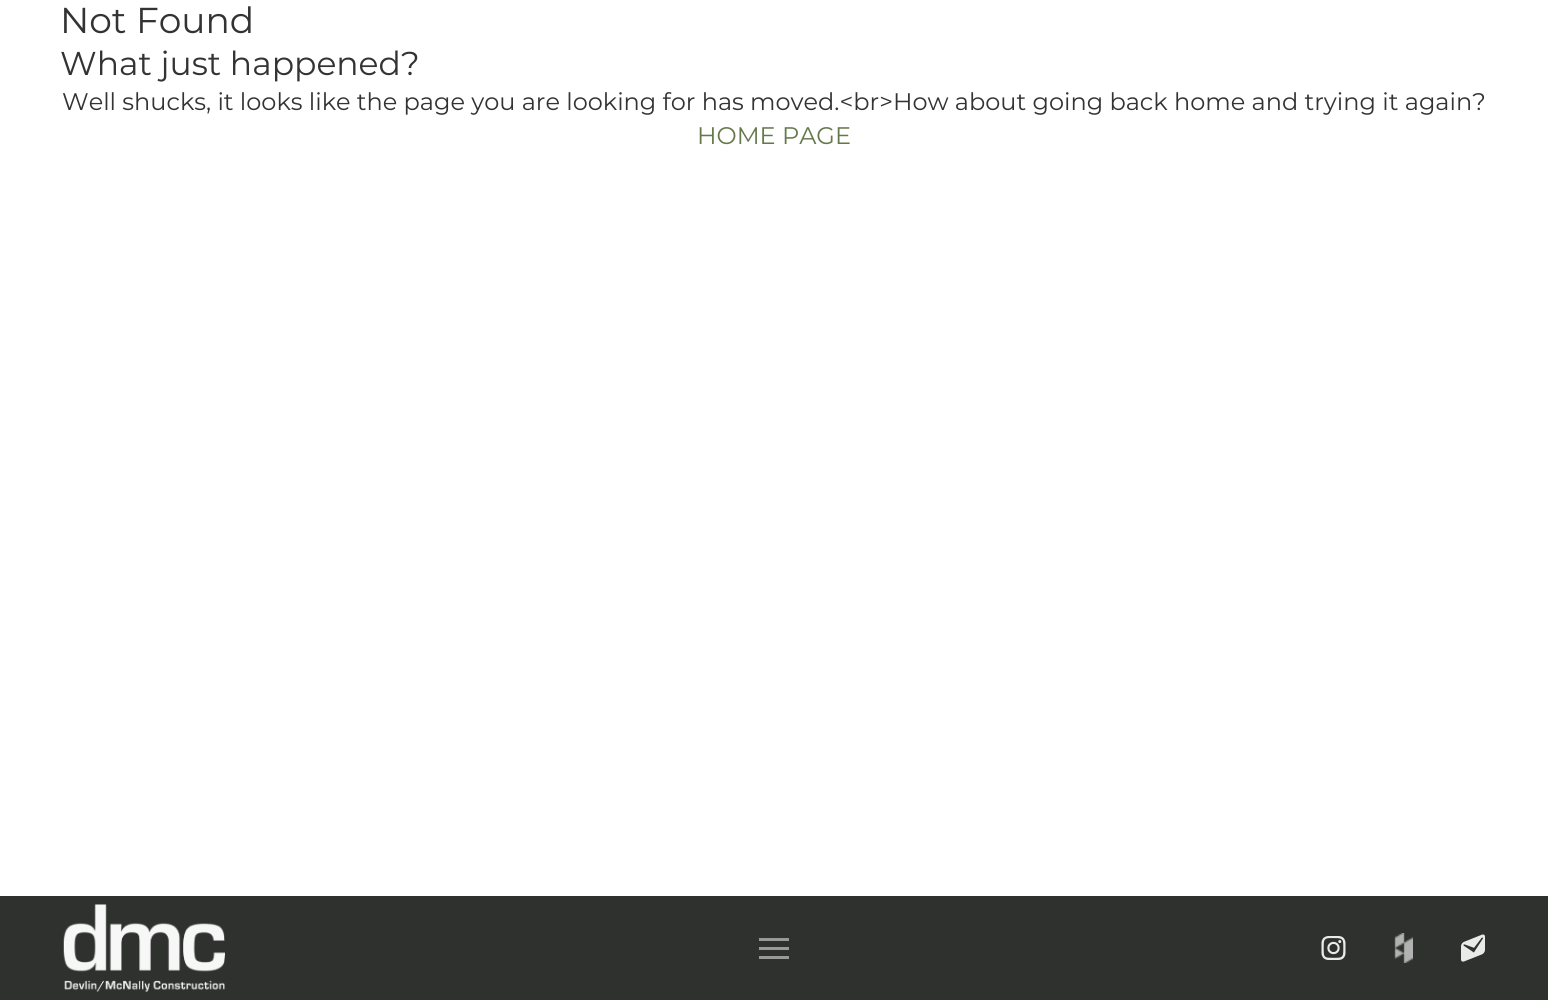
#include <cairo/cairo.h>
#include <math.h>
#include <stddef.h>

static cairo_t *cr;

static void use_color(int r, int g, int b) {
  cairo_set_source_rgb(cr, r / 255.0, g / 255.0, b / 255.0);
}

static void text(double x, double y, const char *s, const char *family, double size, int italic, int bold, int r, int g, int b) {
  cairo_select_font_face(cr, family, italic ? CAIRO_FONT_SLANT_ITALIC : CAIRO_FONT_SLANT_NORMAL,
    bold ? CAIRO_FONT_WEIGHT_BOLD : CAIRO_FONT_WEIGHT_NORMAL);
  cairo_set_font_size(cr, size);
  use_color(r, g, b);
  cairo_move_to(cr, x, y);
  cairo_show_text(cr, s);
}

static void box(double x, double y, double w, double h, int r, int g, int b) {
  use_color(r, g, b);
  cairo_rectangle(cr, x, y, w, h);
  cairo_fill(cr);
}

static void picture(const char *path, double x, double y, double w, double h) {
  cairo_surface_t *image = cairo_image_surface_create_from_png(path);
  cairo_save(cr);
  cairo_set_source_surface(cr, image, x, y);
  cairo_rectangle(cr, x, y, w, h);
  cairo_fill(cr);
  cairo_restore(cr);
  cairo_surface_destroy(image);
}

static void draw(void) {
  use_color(255, 255, 255);
  cairo_paint(cr);
  box(0, 896, 1548, 104, 47, 49, 47);
  picture("img_01.png", 63, 904, 162, 88);
  box(759, 938, 30, 3, 153, 153, 153);
  box(759, 947, 30, 3, 153, 153, 153);
  box(759, 956, 30, 3, 153, 153, 153);
  picture("img_02.png", 1321, 936, 25, 24);
  picture("img_03.png", 1394, 933, 19, 30);
  picture("img_04.png", 1461, 934, 24, 28);
  text(60, 33, "Not Found", "Montserrat", 36, 0, 0, 51, 51, 51);
  text(60, 75, "What just happened?", "Montserrat", 33, 0, 0, 51, 51, 51);
  text(62, 110, "Well shucks, it looks like the page you are looking for has moved.<br>How about going back home and trying it again?", "Montserrat", 24, 0, 0, 51, 51, 51);
  text(697, 144, "HOME PAGE", "Montserrat", 24, 0, 0, 101, 120, 75);
}

int main(void) {
  cairo_surface_t *surface = cairo_image_surface_create(CAIRO_FORMAT_RGB24, 1548, 1000);
  cr = cairo_create(surface);
  cairo_font_options_t *options = cairo_font_options_create();
  cairo_font_options_set_hint_metrics(options, CAIRO_HINT_METRICS_OFF);
  cairo_font_options_set_hint_style(options, CAIRO_HINT_STYLE_NONE);
  cairo_set_font_options(cr, options);
  cairo_set_miter_limit(cr, 4);
  draw();
  cairo_surface_write_to_png(surface, "out.png");
  cairo_font_options_destroy(options);
  cairo_destroy(cr);
  cairo_surface_destroy(surface);
  return 0;
}
